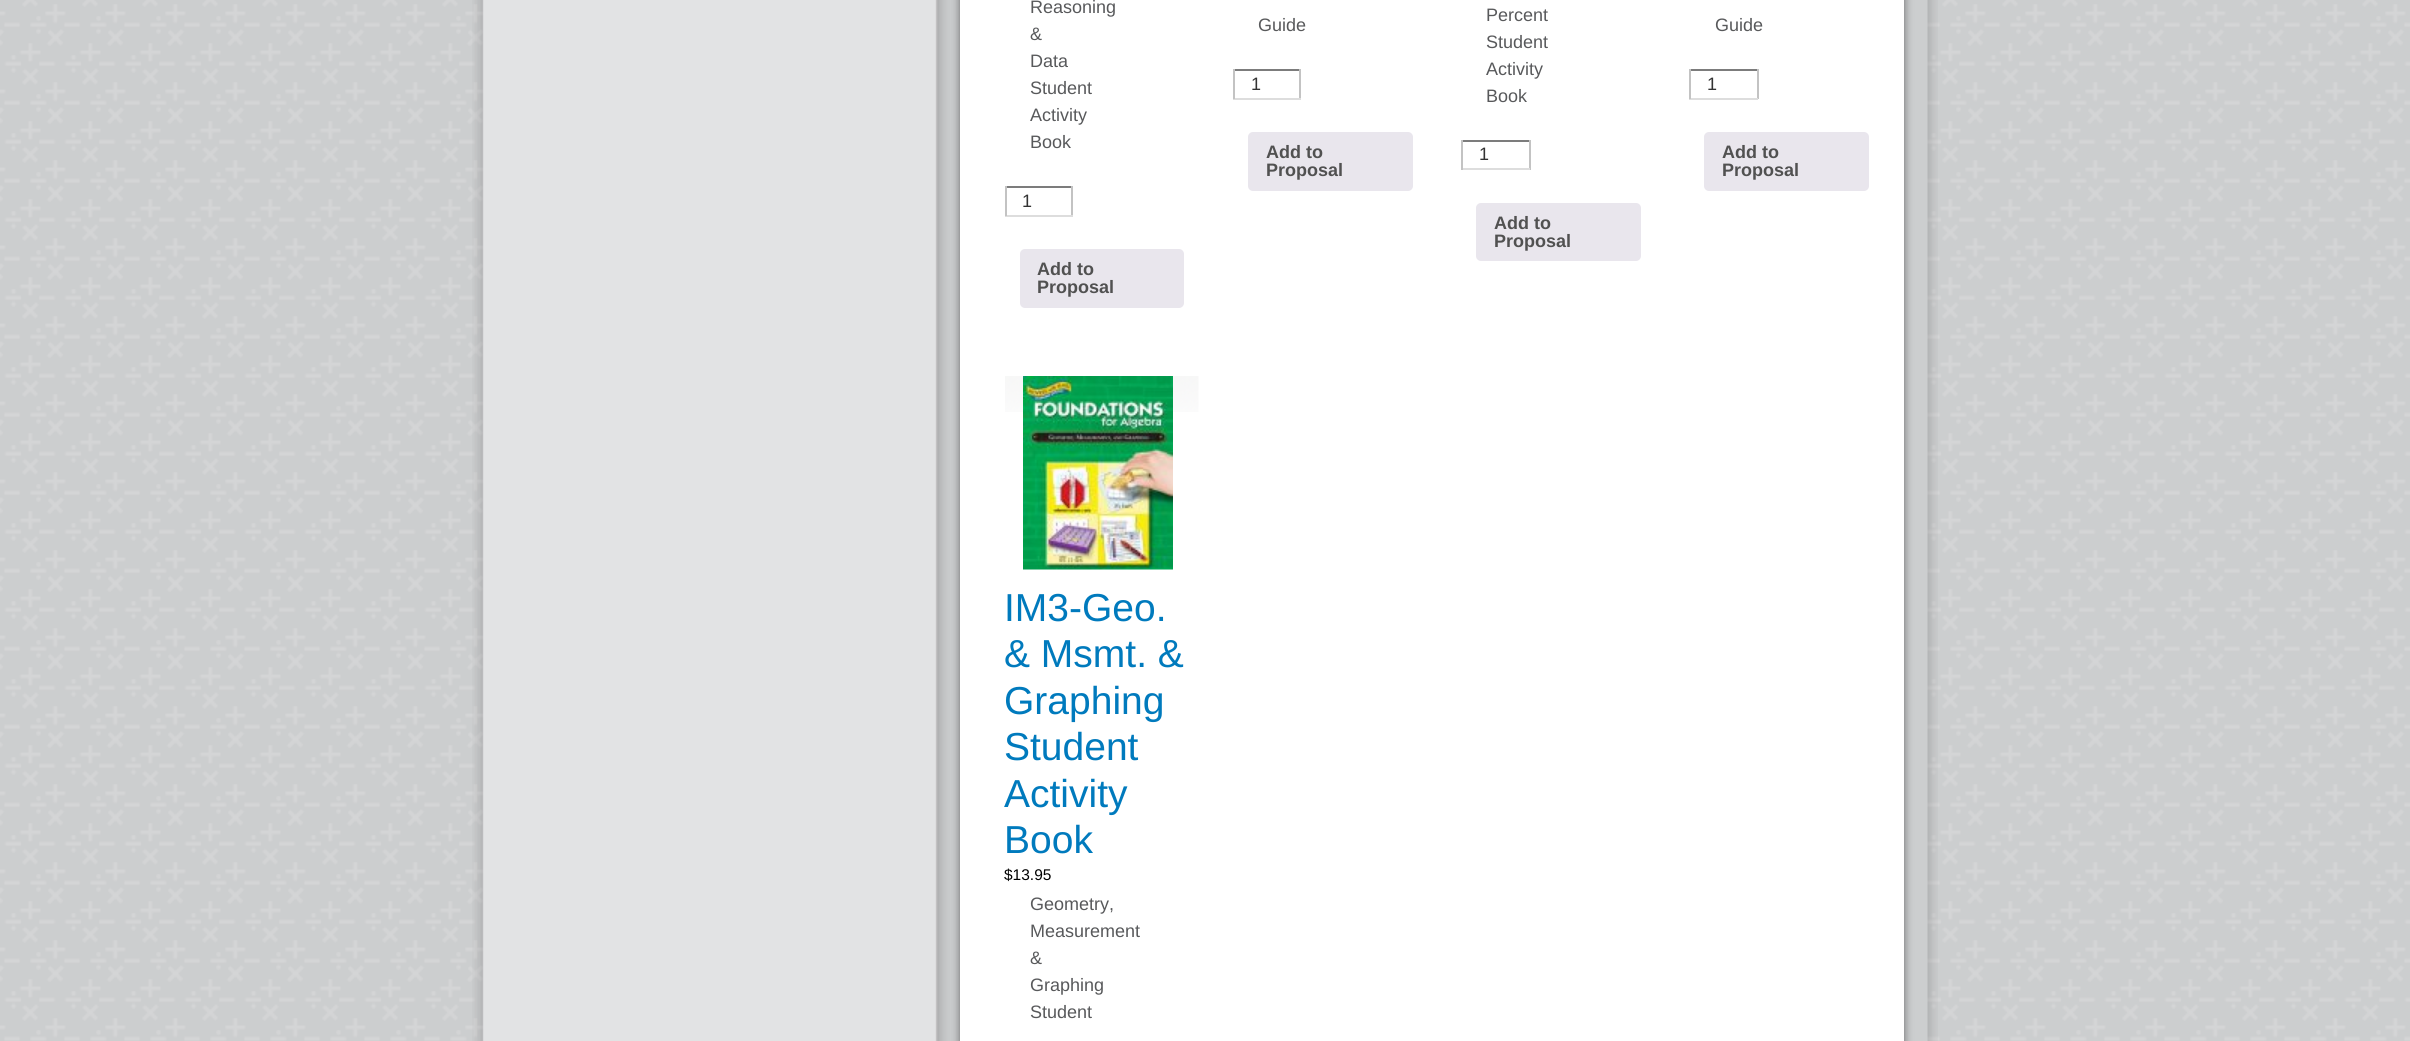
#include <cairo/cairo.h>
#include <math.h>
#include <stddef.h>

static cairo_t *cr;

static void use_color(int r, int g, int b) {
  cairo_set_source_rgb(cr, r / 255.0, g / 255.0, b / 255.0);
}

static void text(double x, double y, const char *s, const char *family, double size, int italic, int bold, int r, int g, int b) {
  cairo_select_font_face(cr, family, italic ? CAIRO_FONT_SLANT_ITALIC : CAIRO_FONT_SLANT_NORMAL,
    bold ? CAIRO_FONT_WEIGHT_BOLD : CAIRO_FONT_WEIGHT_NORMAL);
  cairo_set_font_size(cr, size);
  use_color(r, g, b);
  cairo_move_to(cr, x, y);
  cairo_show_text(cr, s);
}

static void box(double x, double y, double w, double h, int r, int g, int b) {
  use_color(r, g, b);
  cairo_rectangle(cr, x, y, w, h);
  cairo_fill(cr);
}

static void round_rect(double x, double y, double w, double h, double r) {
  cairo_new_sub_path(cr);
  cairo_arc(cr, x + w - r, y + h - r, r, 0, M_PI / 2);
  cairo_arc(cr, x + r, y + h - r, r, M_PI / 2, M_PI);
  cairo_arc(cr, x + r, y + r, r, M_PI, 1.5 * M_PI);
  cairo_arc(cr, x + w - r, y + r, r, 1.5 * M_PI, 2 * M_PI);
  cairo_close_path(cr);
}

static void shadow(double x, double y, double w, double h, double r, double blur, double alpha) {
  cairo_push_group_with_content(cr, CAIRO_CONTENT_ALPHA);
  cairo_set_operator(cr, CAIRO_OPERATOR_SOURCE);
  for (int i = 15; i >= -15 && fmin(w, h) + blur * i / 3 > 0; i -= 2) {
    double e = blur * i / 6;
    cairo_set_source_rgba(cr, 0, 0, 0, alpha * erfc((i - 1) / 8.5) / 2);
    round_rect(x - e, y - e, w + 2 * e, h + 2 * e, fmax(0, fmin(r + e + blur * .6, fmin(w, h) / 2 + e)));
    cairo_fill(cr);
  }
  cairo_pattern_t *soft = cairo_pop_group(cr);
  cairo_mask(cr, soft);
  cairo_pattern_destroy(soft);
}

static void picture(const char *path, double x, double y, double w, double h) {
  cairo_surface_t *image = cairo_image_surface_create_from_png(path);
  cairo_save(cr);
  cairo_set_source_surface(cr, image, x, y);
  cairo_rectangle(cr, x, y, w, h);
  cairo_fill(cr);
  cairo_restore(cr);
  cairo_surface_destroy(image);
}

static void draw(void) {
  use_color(255, 255, 255);
  cairo_paint(cr);
  picture("img_01.png", 0, 0, 2410, 1041);
  picture("img_02.png", 472, 0, 1466, 1041);
  use_color(102, 102, 102);
  shadow(960, -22, 944, 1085, 8, 4.5, 1);
  box(960, 0, 944, 1041, 255, 255, 255);
  box(1005, 186, 68, 2, 124, 124, 124);
  box(1071, 186, 2, 30, 195, 195, 195);
  box(1005, 215, 68, 2, 221, 221, 221);
  box(1005, 186, 2, 30, 195, 195, 195);
  use_color(233, 230, 237);
  round_rect(1020, 249, 164, 59, 5);
  cairo_fill(cr);
  box(1233, 69, 68, 2, 124, 124, 124);
  box(1299, 69, 2, 30, 195, 195, 195);
  box(1233, 98, 68, 2, 221, 221, 221);
  box(1233, 69, 2, 30, 195, 195, 195);
  use_color(233, 230, 237);
  round_rect(1248, 132, 165, 59, 5);
  cairo_fill(cr);
  box(1461, 140, 69, 2, 124, 124, 124);
  box(1529, 140, 2, 30, 195, 195, 195);
  box(1461, 168, 69, 2, 221, 221, 221);
  box(1461, 140, 2, 30, 195, 195, 195);
  use_color(233, 230, 237);
  round_rect(1476, 203, 165, 58, 5);
  cairo_fill(cr);
  box(1689, 69, 69, 2, 124, 124, 124);
  box(1757, 69, 2, 30, 195, 195, 195);
  box(1689, 98, 69, 2, 221, 221, 221);
  box(1689, 69, 2, 30, 195, 195, 195);
  use_color(233, 230, 237);
  round_rect(1704, 132, 165, 59, 5);
  cairo_fill(cr);
  picture("img_03.png", 1005, 376, 194, 36);
  picture("img_04.png", 1023, 376, 150, 194);
  text(1030, 13, "Reasoning", "Liberation Sans", 18, 0, 0, 88, 89, 91);
  text(1030, 40, "&", "Liberation Sans", 18, 0, 0, 88, 89, 91);
  text(1030, 67, "Data", "Liberation Sans", 18, 0, 0, 88, 89, 91);
  text(1030, 94, "Student", "Liberation Sans", 18, 0, 0, 88, 89, 91);
  text(1030, 121, "Activity", "Liberation Sans", 18, 0, 0, 88, 89, 91);
  text(1030, 148, "Book", "Liberation Sans", 18, 0, 0, 88, 89, 91);
  text(1022, 207, "1", "Liberation Sans", 18, 0, 0, 51, 51, 51);
  text(1037, 275, "Add to", "Liberation Sans", 18, 0, 1, 81, 81, 81);
  text(1037, 293, "Proposal", "Liberation Sans", 18, 0, 1, 81, 81, 81);
  text(1258, 31, "Guide", "Liberation Sans", 18, 0, 0, 88, 89, 91);
  text(1251, 90, "1", "Liberation Sans", 18, 0, 0, 51, 51, 51);
  text(1266, 158, "Add to", "Liberation Sans", 18, 0, 1, 81, 81, 81);
  text(1266, 176, "Proposal", "Liberation Sans", 18, 0, 1, 81, 81, 81);
  text(1486, 21, "Percent", "Liberation Sans", 18, 0, 0, 88, 89, 91);
  text(1486, 48, "Student", "Liberation Sans", 18, 0, 0, 88, 89, 91);
  text(1486, 75, "Activity", "Liberation Sans", 18, 0, 0, 88, 89, 91);
  text(1486, 102, "Book", "Liberation Sans", 18, 0, 0, 88, 89, 91);
  text(1479, 160, "1", "Liberation Sans", 18, 0, 0, 51, 51, 51);
  text(1494, 229, "Add to", "Liberation Sans", 18, 0, 1, 81, 81, 81);
  text(1494, 247, "Proposal", "Liberation Sans", 18, 0, 1, 81, 81, 81);
  text(1715, 31, "Guide", "Liberation Sans", 18, 0, 0, 88, 89, 91);
  text(1707, 90, "1", "Liberation Sans", 18, 0, 0, 51, 51, 51);
  text(1722, 158, "Add to", "Liberation Sans", 18, 0, 1, 81, 81, 81);
  text(1722, 176, "Proposal", "Liberation Sans", 18, 0, 1, 81, 81, 81);
  text(1004, 621, "IM3-Geo.", "Liberation Sans", 39, 0, 0, 0, 122, 189);
  text(1004, 667, "& Msmt. &", "Liberation Sans", 39, 0, 0, 0, 122, 189);
  text(1004, 714, "Graphing", "Liberation Sans", 39, 0, 0, 0, 122, 189);
  text(1004, 760, "Student", "Liberation Sans", 39, 0, 0, 0, 122, 189);
  text(1004, 807, "Activity", "Liberation Sans", 39, 0, 0, 0, 122, 189);
  text(1004, 853, "Book", "Liberation Sans", 39, 0, 0, 0, 122, 189);
  text(1004, 880, "$13.95", "Liberation Sans", 15.5, 0, 0, 0, 0, 0);
  text(1030, 910, "Geometry,", "Liberation Sans", 18, 0, 0, 88, 89, 91);
  text(1030, 937, "Measurement", "Liberation Sans", 18, 0, 0, 88, 89, 91);
  text(1030, 964, "&", "Liberation Sans", 18, 0, 0, 88, 89, 91);
  text(1030, 991, "Graphing", "Liberation Sans", 18, 0, 0, 88, 89, 91);
  text(1030, 1018, "Student", "Liberation Sans", 18, 0, 0, 88, 89, 91);
}

int main(void) {
  cairo_surface_t *surface = cairo_image_surface_create(CAIRO_FORMAT_RGB24, 2410, 1041);
  cr = cairo_create(surface);
  cairo_font_options_t *options = cairo_font_options_create();
  cairo_font_options_set_hint_metrics(options, CAIRO_HINT_METRICS_OFF);
  cairo_font_options_set_hint_style(options, CAIRO_HINT_STYLE_NONE);
  cairo_set_font_options(cr, options);
  cairo_set_miter_limit(cr, 4);
  draw();
  cairo_surface_write_to_png(surface, "out.png");
  cairo_font_options_destroy(options);
  cairo_destroy(cr);
  cairo_surface_destroy(surface);
  return 0;
}
